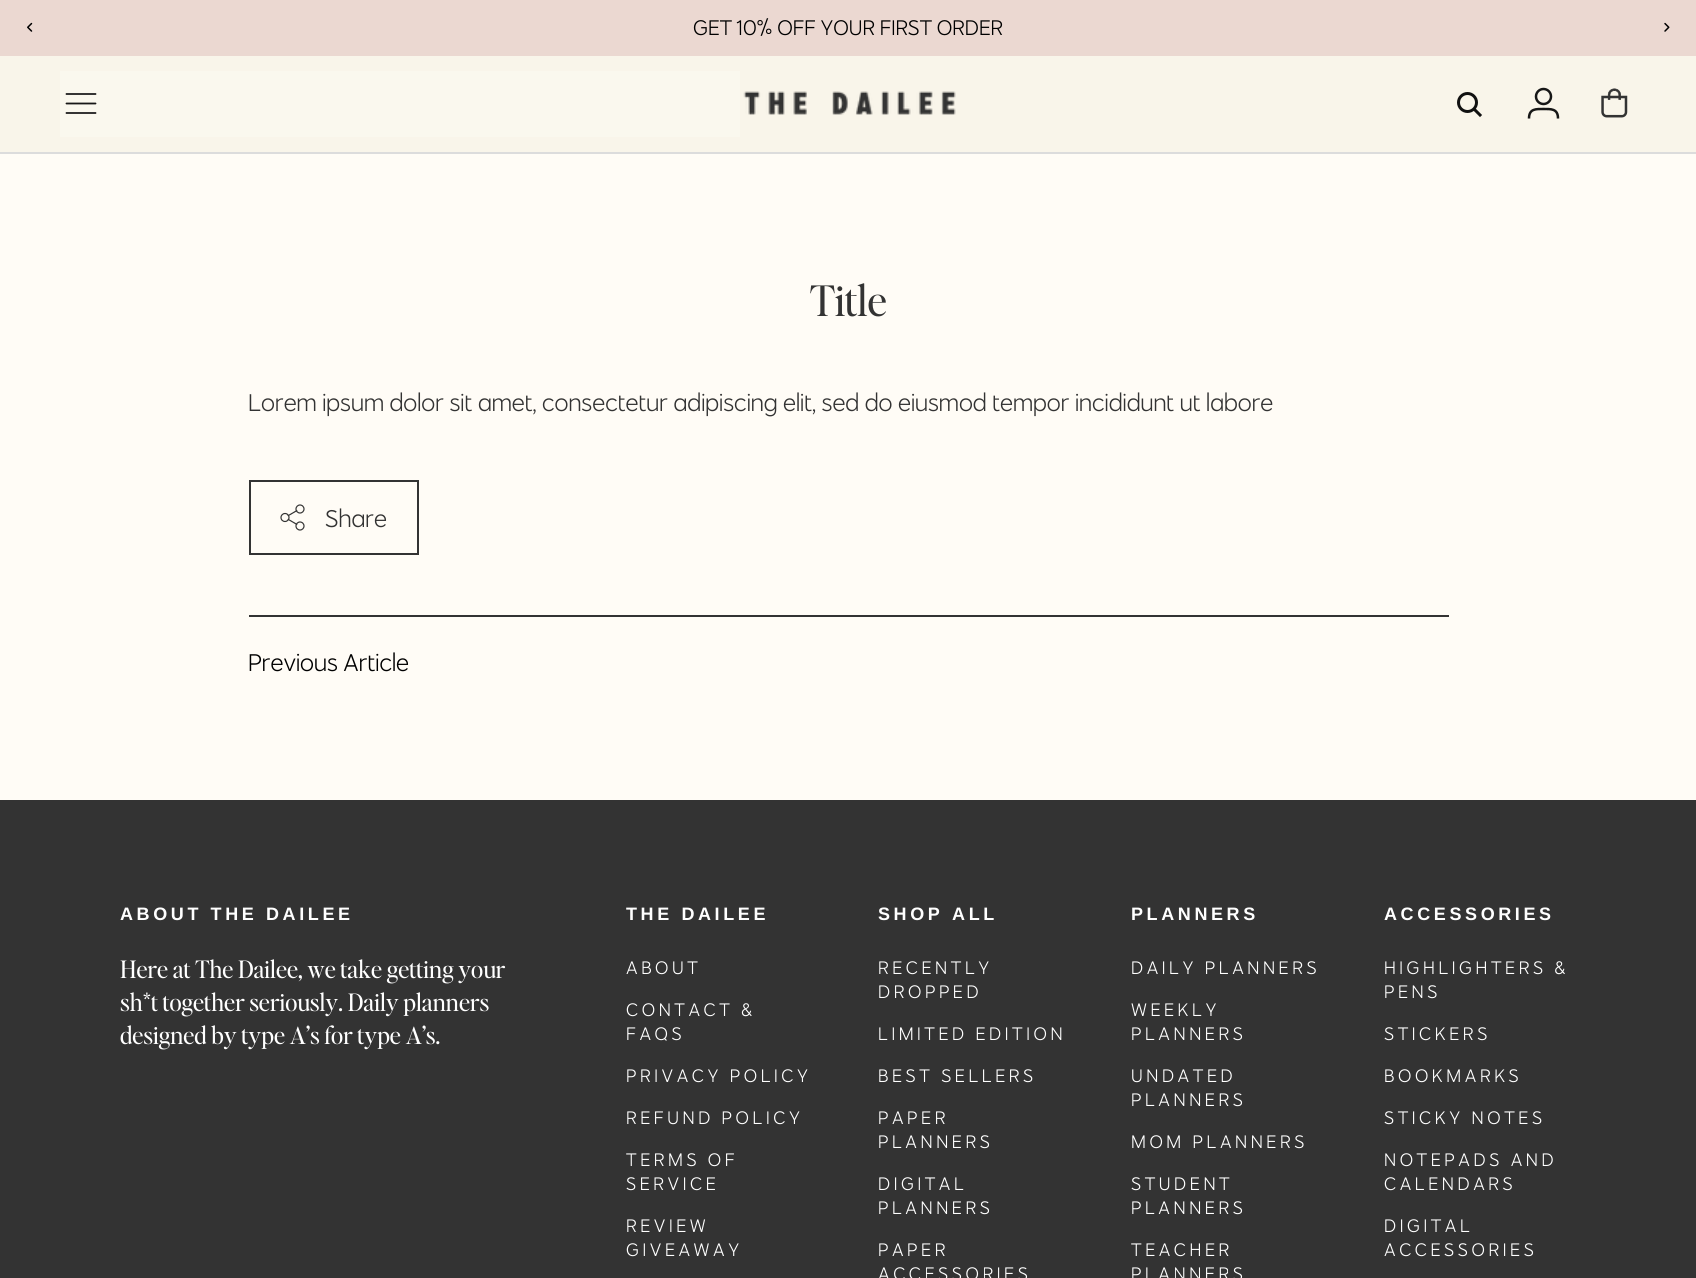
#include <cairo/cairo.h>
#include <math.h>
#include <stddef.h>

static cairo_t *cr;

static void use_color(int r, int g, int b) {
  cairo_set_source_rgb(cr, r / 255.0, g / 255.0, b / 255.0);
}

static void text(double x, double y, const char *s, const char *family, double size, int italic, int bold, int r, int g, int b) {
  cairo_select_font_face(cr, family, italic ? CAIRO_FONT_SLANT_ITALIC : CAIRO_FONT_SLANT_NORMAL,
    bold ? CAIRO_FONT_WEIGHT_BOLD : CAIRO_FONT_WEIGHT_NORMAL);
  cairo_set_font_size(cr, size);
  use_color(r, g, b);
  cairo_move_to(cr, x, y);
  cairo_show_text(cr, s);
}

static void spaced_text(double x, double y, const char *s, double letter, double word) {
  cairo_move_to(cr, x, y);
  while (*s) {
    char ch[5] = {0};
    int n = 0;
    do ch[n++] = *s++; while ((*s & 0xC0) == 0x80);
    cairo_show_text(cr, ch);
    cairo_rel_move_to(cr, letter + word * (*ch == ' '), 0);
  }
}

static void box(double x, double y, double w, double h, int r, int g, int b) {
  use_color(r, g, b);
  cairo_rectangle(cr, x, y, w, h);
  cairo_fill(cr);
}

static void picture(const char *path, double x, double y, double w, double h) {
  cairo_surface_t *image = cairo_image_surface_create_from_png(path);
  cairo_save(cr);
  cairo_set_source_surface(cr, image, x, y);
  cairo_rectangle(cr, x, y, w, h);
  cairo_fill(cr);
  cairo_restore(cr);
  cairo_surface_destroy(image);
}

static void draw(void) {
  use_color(255, 252, 246);
  cairo_paint(cr);
  box(0, 0, 1696, 56, 235, 216, 209);
  picture("img_01.png", 27, 22, 6, 10);
  picture("img_02.png", 1664, 22, 6, 10);
  box(0, 56, 1696, 96, 249, 245, 234);
  box(0, 152, 1696, 2, 220, 220, 220);
  box(60, 71, 680, 66, 250, 248, 238);
  cairo_new_path(cr);
  cairo_move_to(cr, 66.5, 103.5);
  cairo_line_to(cr, 95.5, 103.5);
  cairo_move_to(cr, 66.5, 94);
  cairo_line_to(cr, 95.5, 94);
  cairo_move_to(cr, 66.5, 113);
  cairo_line_to(cr, 95.5, 113);
  use_color(23, 23, 23);
  cairo_set_line_width(cr, 1.8);
  cairo_set_line_cap(cr, CAIRO_LINE_CAP_ROUND);
  cairo_set_line_join(cr, CAIRO_LINE_JOIN_ROUND);
  cairo_stroke(cr);
  picture("img_03.png", 743, 91, 213, 24);
  cairo_arc(cr, 1467.5, 102.5, 9, 0, 2 * M_PI);
  use_color(17, 17, 17);
  cairo_set_line_width(cr, 3);
  cairo_set_line_cap(cr, CAIRO_LINE_CAP_BUTT);
  cairo_set_line_join(cr, CAIRO_LINE_JOIN_MITER);
  cairo_stroke(cr);
  cairo_new_path(cr);
  cairo_move_to(cr, 1475, 110);
  cairo_line_to(cr, 1480, 115);
  cairo_set_line_cap(cr, CAIRO_LINE_CAP_SQUARE);
  cairo_stroke(cr);
  cairo_arc(cr, 1543.5, 96.5, 7.5, 0, 2 * M_PI);
  use_color(23, 23, 23);
  cairo_set_line_width(cr, 2.5);
  cairo_set_line_cap(cr, CAIRO_LINE_CAP_BUTT);
  cairo_stroke(cr);
  cairo_new_path(cr);
  cairo_move_to(cr, 1529, 118.5);
  cairo_curve_to(cr, 1529, 108.5, 1536, 109, 1543.5, 109);
  cairo_curve_to(cr, 1551, 109, 1558, 108.5, 1558, 118.5);
  cairo_stroke(cr);
  picture("img_04.png", 1601, 88, 27, 30);
  cairo_rectangle(cr, 250, 481, 168, 73);
  use_color(51, 51, 51);
  cairo_set_line_width(cr, 2);
  cairo_stroke(cr);
  picture("img_05.png", 280, 504, 25, 27);
  box(249, 615, 1200, 2, 51, 51, 51);
  box(0, 800, 1696, 478, 51, 51, 51);
  text(693, 35, "GET 10% OFF YOUR FIRST ORDER", "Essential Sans", 21, 0, 0, 0, 0, 0);
  text(810, 316, "Title", "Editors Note", 42, 0, 0, 51, 51, 51);
  text(248, 411, "Lorem ipsum dolor sit amet, consectetur adipiscing elit, sed do eiusmod tempor incididunt ut labore", "Essential Sans", 24, 0, 0, 51, 51, 51);
  text(325, 527, "Share", "Essential Sans", 24, 0, 0, 51, 51, 51);
  text(248, 671, "Previous Article", "Essential Sans", 24, 0, 0, 0, 0, 0);
  cairo_select_font_face(cr, "Liberation Sans", CAIRO_FONT_SLANT_NORMAL, CAIRO_FONT_WEIGHT_BOLD);
  cairo_set_font_size(cr, 18);
  use_color(255, 255, 255);
  spaced_text(120, 920, "ABOUT THE DAILEE", 3.6, 0);
  text(120, 978, "Here at The Dailee, we take getting your", "Editors Note", 24, 0, 0, 255, 255, 255);
  text(120, 1011, "sh*t together seriously. Daily planners", "Editors Note", 24, 0, 0, 255, 255, 255);
  text(120, 1044, "designed by type A’s for type A’s.", "Editors Note", 24, 0, 0, 255, 255, 255);
  cairo_select_font_face(cr, "Liberation Sans", CAIRO_FONT_SLANT_NORMAL, CAIRO_FONT_WEIGHT_BOLD);
  cairo_set_font_size(cr, 18);
  spaced_text(626, 920, "THE DAILEE", 3.6, 0);
  cairo_select_font_face(cr, "Essential Sans", CAIRO_FONT_SLANT_NORMAL, CAIRO_FONT_WEIGHT_NORMAL);
  spaced_text(626, 974, "ABOUT", 3.6, 0);
  spaced_text(626, 1016, "CONTACT &", 3.6, 0);
  spaced_text(626, 1040, "FAQS", 3.6, 0);
  spaced_text(626, 1082, "PRIVACY POLICY", 3.6, 0);
  spaced_text(626, 1124, "REFUND POLICY", 3.6, 0);
  spaced_text(626, 1166, "TERMS OF", 3.6, 0);
  spaced_text(626, 1190, "SERVICE", 3.6, 0);
  spaced_text(626, 1232, "REVIEW", 3.6, 0);
  spaced_text(626, 1256, "GIVEAWAY", 3.6, 0);
  cairo_select_font_face(cr, "Liberation Sans", CAIRO_FONT_SLANT_NORMAL, CAIRO_FONT_WEIGHT_BOLD);
  spaced_text(878, 920, "SHOP ALL", 3.6, 0);
  cairo_select_font_face(cr, "Essential Sans", CAIRO_FONT_SLANT_NORMAL, CAIRO_FONT_WEIGHT_NORMAL);
  spaced_text(878, 974, "RECENTLY", 3.6, 0);
  spaced_text(878, 998, "DROPPED", 3.6, 0);
  spaced_text(878, 1040, "LIMITED EDITION", 3.6, 0);
  spaced_text(878, 1082, "BEST SELLERS", 3.6, 0);
  spaced_text(878, 1124, "PAPER", 3.6, 0);
  spaced_text(878, 1148, "PLANNERS", 3.6, 0);
  spaced_text(878, 1190, "DIGITAL", 3.6, 0);
  spaced_text(878, 1214, "PLANNERS", 3.6, 0);
  spaced_text(878, 1256, "PAPER", 3.6, 0);
  spaced_text(878, 1280, "ACCESSORIES", 3.6, 0);
  cairo_select_font_face(cr, "Liberation Sans", CAIRO_FONT_SLANT_NORMAL, CAIRO_FONT_WEIGHT_BOLD);
  spaced_text(1131, 920, "PLANNERS", 3.6, 0);
  cairo_select_font_face(cr, "Essential Sans", CAIRO_FONT_SLANT_NORMAL, CAIRO_FONT_WEIGHT_NORMAL);
  spaced_text(1131, 974, "DAILY PLANNERS", 3.6, 0);
  spaced_text(1131, 1016, "WEEKLY", 3.6, 0);
  spaced_text(1131, 1040, "PLANNERS", 3.6, 0);
  spaced_text(1131, 1082, "UNDATED", 3.6, 0);
  spaced_text(1131, 1106, "PLANNERS", 3.6, 0);
  spaced_text(1131, 1148, "MOM PLANNERS", 3.6, 0);
  spaced_text(1131, 1190, "STUDENT", 3.6, 0);
  spaced_text(1131, 1214, "PLANNERS", 3.6, 0);
  spaced_text(1131, 1256, "TEACHER", 3.6, 0);
  spaced_text(1131, 1280, "PLANNERS", 3.6, 0);
  cairo_select_font_face(cr, "Liberation Sans", CAIRO_FONT_SLANT_NORMAL, CAIRO_FONT_WEIGHT_BOLD);
  spaced_text(1384, 920, "ACCESSORIES", 3.6, 0);
  cairo_select_font_face(cr, "Essential Sans", CAIRO_FONT_SLANT_NORMAL, CAIRO_FONT_WEIGHT_NORMAL);
  spaced_text(1384, 974, "HIGHLIGHTERS &", 3.6, 0);
  spaced_text(1384, 998, "PENS", 3.6, 0);
  spaced_text(1384, 1040, "STICKERS", 3.6, 0);
  spaced_text(1384, 1082, "BOOKMARKS", 3.6, 0);
  spaced_text(1384, 1124, "STICKY NOTES", 3.6, 0);
  spaced_text(1384, 1166, "NOTEPADS AND", 3.6, 0);
  spaced_text(1384, 1190, "CALENDARS", 3.6, 0);
  spaced_text(1384, 1232, "DIGITAL", 3.6, 0);
  spaced_text(1384, 1256, "ACCESSORIES", 3.6, 0);
}

int main(void) {
  cairo_surface_t *surface = cairo_image_surface_create(CAIRO_FORMAT_RGB24, 1696, 1278);
  cr = cairo_create(surface);
  cairo_font_options_t *options = cairo_font_options_create();
  cairo_font_options_set_hint_metrics(options, CAIRO_HINT_METRICS_OFF);
  cairo_font_options_set_hint_style(options, CAIRO_HINT_STYLE_NONE);
  cairo_set_font_options(cr, options);
  cairo_set_miter_limit(cr, 4);
  draw();
  cairo_surface_write_to_png(surface, "out.png");
  cairo_font_options_destroy(options);
  cairo_destroy(cr);
  cairo_surface_destroy(surface);
  return 0;
}
